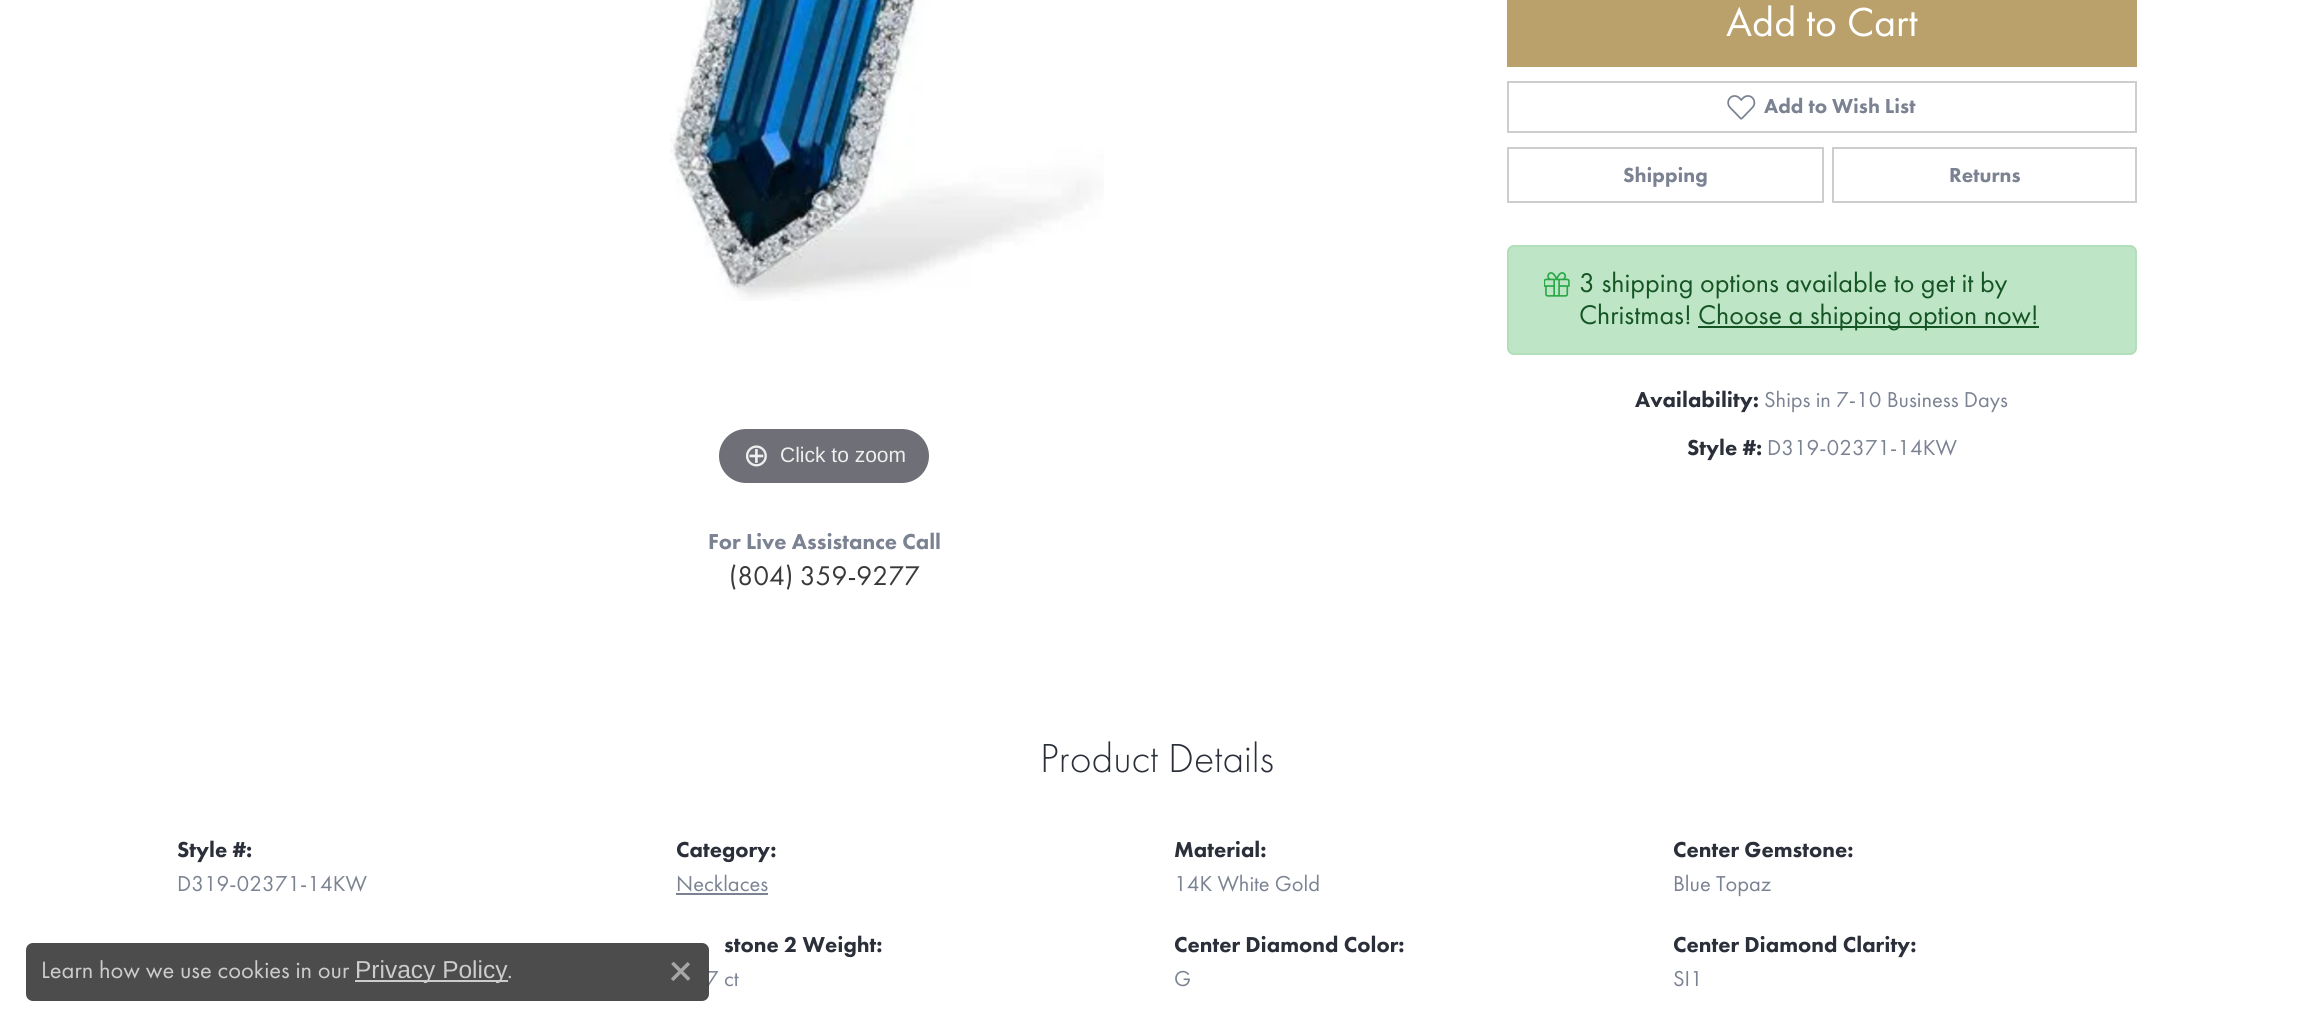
#include <cairo/cairo.h>
#include <math.h>
#include <stddef.h>

static cairo_t *cr;

static void use_color(int r, int g, int b) {
  cairo_set_source_rgb(cr, r / 255.0, g / 255.0, b / 255.0);
}

static void text(double x, double y, const char *s, const char *family, double size, int italic, int bold, int r, int g, int b) {
  cairo_select_font_face(cr, family, italic ? CAIRO_FONT_SLANT_ITALIC : CAIRO_FONT_SLANT_NORMAL,
    bold ? CAIRO_FONT_WEIGHT_BOLD : CAIRO_FONT_WEIGHT_NORMAL);
  cairo_set_font_size(cr, size);
  use_color(r, g, b);
  cairo_move_to(cr, x, y);
  cairo_show_text(cr, s);
}

static void box(double x, double y, double w, double h, int r, int g, int b) {
  use_color(r, g, b);
  cairo_rectangle(cr, x, y, w, h);
  cairo_fill(cr);
}

static void round_rect(double x, double y, double w, double h, double r) {
  cairo_new_sub_path(cr);
  cairo_arc(cr, x + w - r, y + h - r, r, 0, M_PI / 2);
  cairo_arc(cr, x + r, y + h - r, r, M_PI / 2, M_PI);
  cairo_arc(cr, x + r, y + r, r, M_PI, 1.5 * M_PI);
  cairo_arc(cr, x + w - r, y + r, r, 1.5 * M_PI, 2 * M_PI);
  cairo_close_path(cr);
}

static void picture(const char *path, double x, double y, double w, double h) {
  cairo_surface_t *image = cairo_image_surface_create_from_png(path);
  cairo_save(cr);
  cairo_set_source_surface(cr, image, x, y);
  cairo_rectangle(cr, x, y, w, h);
  cairo_fill(cr);
  cairo_restore(cr);
  cairo_surface_destroy(image);
}

static void draw(void) {
  use_color(255, 255, 255);
  cairo_paint(cr);
  box(1507, 0, 630, 67, 186, 160, 106);
  cairo_rectangle(cr, 1508, 82, 628, 50);
  use_color(205, 205, 205);
  cairo_stroke(cr);
  picture("img_01.png", 1727, 95, 29, 25);
  cairo_rectangle(cr, 1508, 148, 315, 54);
  cairo_stroke(cr);
  cairo_rectangle(cr, 1833, 148, 303, 54);
  cairo_stroke(cr);
  use_color(191, 229, 199);
  round_rect(1507, 245, 630, 110, 7);
  cairo_fill(cr);
  round_rect(1508, 246, 628, 108, 6);
  cairo_set_source_rgba(cr, 0.157, 0.655, 0.271, 0.1);
  cairo_stroke(cr);
  picture("img_02.png", 1544, 272, 26, 25);
  box(1698, 326, 341, 2, 20, 85, 35);
  picture("img_03.png", 670, 0, 434, 301);
  use_color(111, 112, 119);
  round_rect(719, 429, 210, 54, 27);
  cairo_fill(cr);
  box(676, 893, 92, 2, 123, 130, 146);
  text(1726, 36, "Add to Cart", "Futura PT", 42, 0, 0, 255, 255, 255);
  text(1764, 113, "Add to Wish List", "Futura PT Black", 21, 0, 0, 123, 130, 146);
  text(1623, 182, "Shipping", "Futura PT Black", 21, 0, 0, 123, 130, 146);
  text(1949, 182, "Returns", "Futura PT Black", 21, 0, 0, 123, 130, 146);
  text(1579, 292, "3 shipping options available to get it by", "Futura PT", 28, 0, 0, 20, 85, 35);
  text(1579, 324, "Christmas!", "Futura PT", 28, 0, 0, 20, 85, 35);
  text(1698, 324, "Choose a shipping option now!", "Futura PT", 28, 0, 0, 20, 85, 35);
  text(1635, 407, "Availability:", "Futura PT Black", 22.4, 0, 0, 43, 47, 58);
  text(1764, 407, "Ships in 7-10 Business Days", "Futura PT", 22.4, 0, 0, 123, 130, 146);
  text(1687, 455, "Style #:", "Futura PT Black", 22.4, 0, 0, 43, 47, 58);
  text(1767, 455, "D319-02371-14KW", "Futura PT", 22.4, 0, 0, 123, 130, 146);
  text(743, 466, "⊕", "DejaVu Sans", 32, 0, 0, 238, 238, 238);
  text(780, 462, "Click to zoom", "Liberation Sans", 21, 0, 0, 238, 238, 238);
  text(708, 549, "For Live Assistance Call", "Futura PT Black", 22.4, 0, 0, 123, 130, 146);
  text(729, 585, "(804) 359-9277", "Futura PT", 28, 0, 0, 57, 57, 57);
  text(1040, 772, "Product Details", "Futura PT Light", 42, 0, 0, 43, 47, 58);
  text(177, 857, "Style #:", "Futura PT Black", 22.4, 0, 0, 43, 47, 58);
  text(177, 891, "D319-02371-14KW", "Futura PT", 22.4, 0, 0, 123, 130, 146);
  text(676, 857, "Category:", "Futura PT Black", 22.4, 0, 0, 43, 47, 58);
  text(676, 891, "Necklaces", "Futura PT", 22.4, 0, 0, 123, 130, 146);
  text(724, 952, "stone 2 Weight:", "Futura PT Black", 22.4, 0, 0, 43, 47, 58);
  text(706, 986, "7 ct", "Futura PT", 22.4, 0, 0, 123, 130, 146);
  text(1174, 857, "Material:", "Futura PT Black", 22.4, 0, 0, 43, 47, 58);
  text(1174, 891, "14K White Gold", "Futura PT", 22.4, 0, 0, 123, 130, 146);
  text(1174, 952, "Center Diamond Color:", "Futura PT Black", 22.4, 0, 0, 43, 47, 58);
  text(1174, 986, "G", "Futura PT", 22.4, 0, 0, 123, 130, 146);
  text(1673, 857, "Center Gemstone:", "Futura PT Black", 22.4, 0, 0, 43, 47, 58);
  text(1673, 891, "Blue Topaz", "Futura PT", 22.4, 0, 0, 123, 130, 146);
  text(1673, 952, "Center Diamond Clarity:", "Futura PT Black", 22.4, 0, 0, 43, 47, 58);
  text(1673, 986, "SI1", "Futura PT", 22.4, 0, 0, 123, 130, 146);
  cairo_set_source_rgba(cr, 0.224, 0.224, 0.224, 0.9);
  round_rect(26, 943, 683, 58, 7);
  cairo_fill(cr);
  text(41, 978, "Learn how we use cookies in our", "Futura PT", 24.5, 0, 0, 204, 204, 204);
  box(355, 980, 153, 2, 204, 204, 204);
  text(355, 978, "Privacy Policy", "Liberation Sans", 24.5, 0, 0, 204, 204, 204);
  text(507, 978, ".", "Futura PT", 24.5, 0, 0, 204, 204, 204);
  picture("img_04.png", 671, 962, 19, 19);
}

int main(void) {
  cairo_surface_t *surface = cairo_image_surface_create(CAIRO_FORMAT_RGB24, 2313, 1026);
  cr = cairo_create(surface);
  cairo_font_options_t *options = cairo_font_options_create();
  cairo_font_options_set_hint_metrics(options, CAIRO_HINT_METRICS_OFF);
  cairo_font_options_set_hint_style(options, CAIRO_HINT_STYLE_NONE);
  cairo_set_font_options(cr, options);
  cairo_set_miter_limit(cr, 4);
  draw();
  cairo_surface_write_to_png(surface, "out.png");
  cairo_font_options_destroy(options);
  cairo_destroy(cr);
  cairo_surface_destroy(surface);
  return 0;
}
